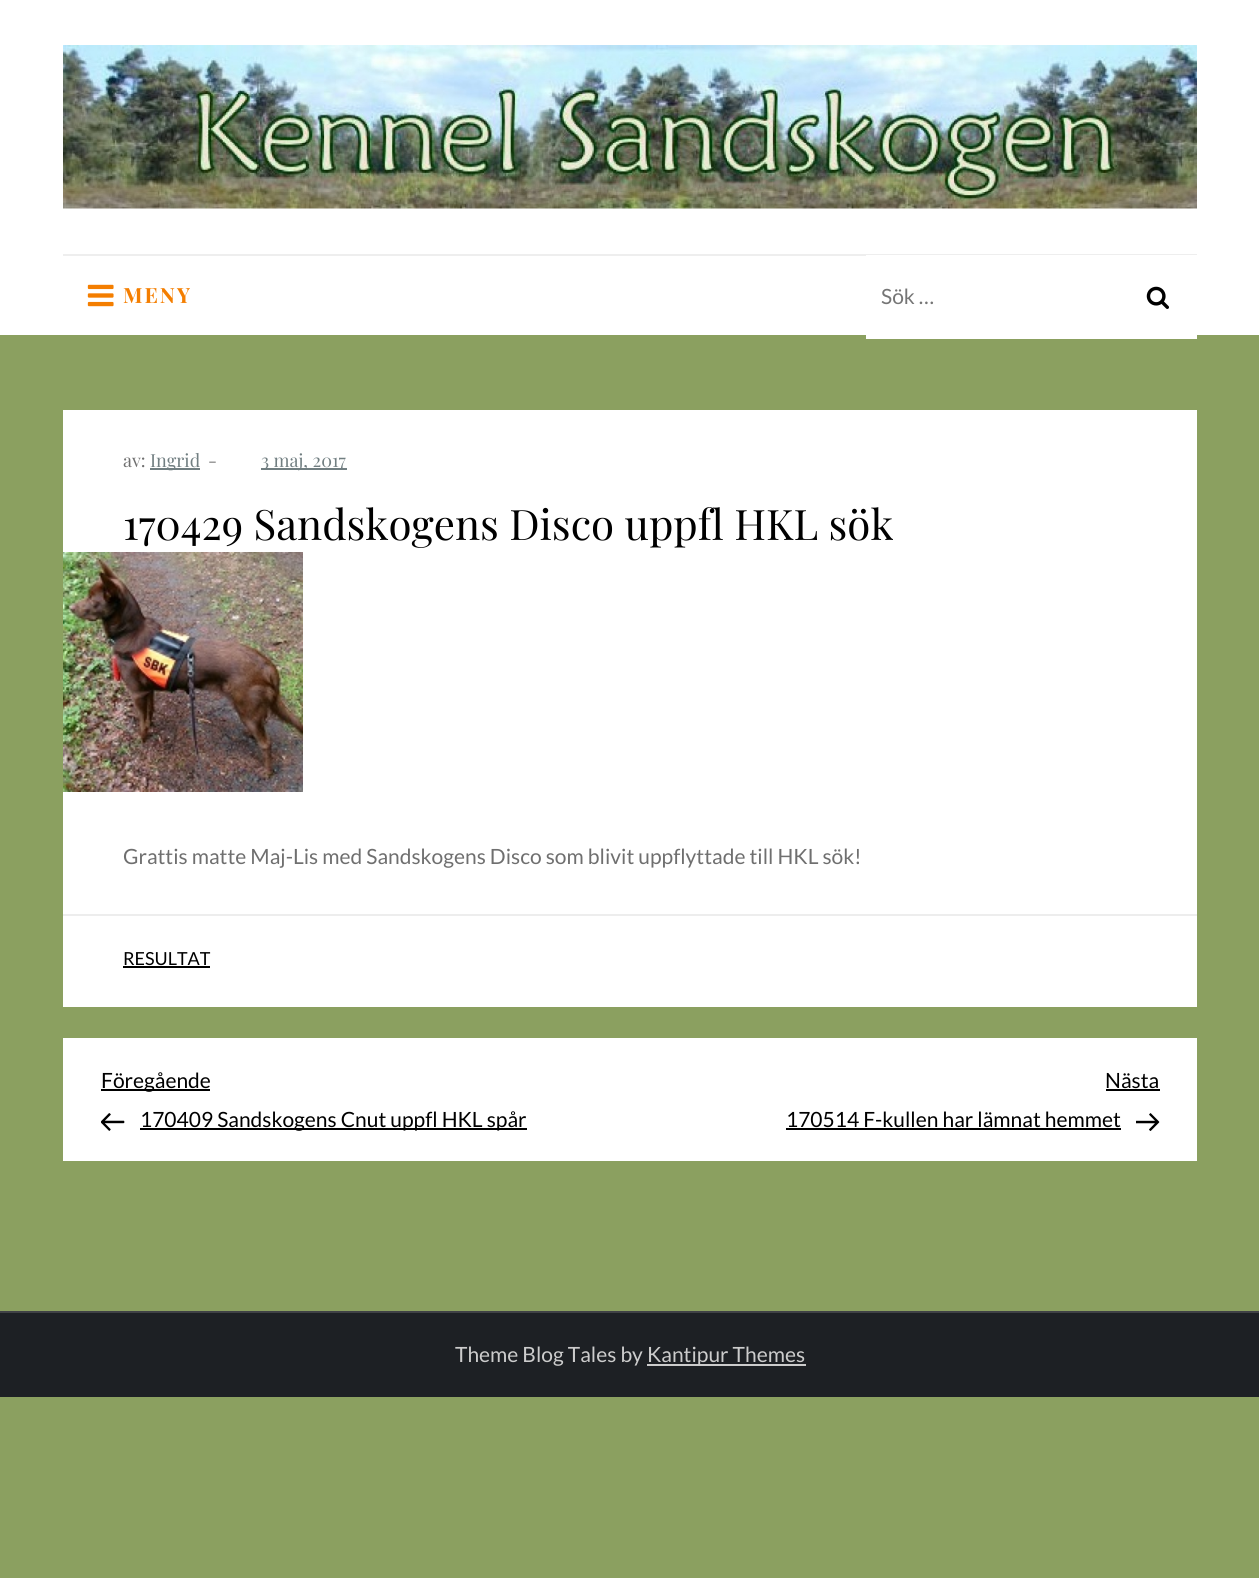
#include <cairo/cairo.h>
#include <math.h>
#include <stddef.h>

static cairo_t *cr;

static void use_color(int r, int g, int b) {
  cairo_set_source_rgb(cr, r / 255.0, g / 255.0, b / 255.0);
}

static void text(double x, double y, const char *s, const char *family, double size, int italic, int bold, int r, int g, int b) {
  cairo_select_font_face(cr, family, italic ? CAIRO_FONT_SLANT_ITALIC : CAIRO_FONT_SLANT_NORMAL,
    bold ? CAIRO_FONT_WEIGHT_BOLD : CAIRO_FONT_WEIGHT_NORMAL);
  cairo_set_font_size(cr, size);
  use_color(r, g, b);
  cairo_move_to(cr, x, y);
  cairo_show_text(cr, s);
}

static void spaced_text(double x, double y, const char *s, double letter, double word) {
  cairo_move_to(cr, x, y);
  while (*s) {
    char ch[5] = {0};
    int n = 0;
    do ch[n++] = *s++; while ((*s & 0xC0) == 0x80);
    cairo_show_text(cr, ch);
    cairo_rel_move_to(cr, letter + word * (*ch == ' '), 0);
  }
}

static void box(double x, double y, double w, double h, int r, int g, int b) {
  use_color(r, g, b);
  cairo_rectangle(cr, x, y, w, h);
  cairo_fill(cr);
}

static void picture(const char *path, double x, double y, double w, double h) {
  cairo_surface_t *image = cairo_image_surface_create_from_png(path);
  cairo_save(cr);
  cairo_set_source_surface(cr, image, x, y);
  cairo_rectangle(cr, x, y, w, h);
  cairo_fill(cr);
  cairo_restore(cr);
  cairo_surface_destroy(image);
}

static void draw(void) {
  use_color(139, 160, 96);
  cairo_paint(cr);
  box(0, 0, 1259, 335, 255, 255, 255);
  box(63, 254, 1134, 2, 238, 238, 238);
  picture("img_01.png", 63, 45, 1134, 164);
  picture("img_02.png", 87, 284, 27, 23);
  box(866, 255, 331, 84, 255, 255, 255);
  picture("img_03.png", 1146, 286, 23, 23);
  box(63, 410, 1134, 597, 255, 255, 255);
  box(150, 468, 50, 2, 113, 126, 129);
  box(261, 468, 86, 2, 113, 126, 129);
  picture("img_04.png", 63, 552, 240, 240);
  box(63, 914, 1134, 2, 237, 237, 237);
  box(123, 966, 87, 2, 0, 0, 0);
  box(63, 1038, 1134, 123, 255, 255, 255);
  box(101, 1089, 109, 2, 0, 0, 0);
  picture("img_05.png", 101, 1113, 24, 18);
  box(140, 1128, 387, 2, 0, 0, 0);
  box(1106, 1089, 54, 2, 0, 0, 0);
  box(786, 1128, 335, 2, 0, 0, 0);
  picture("img_06.png", 1136, 1113, 24, 18);
  box(0, 1313, 1259, 84, 29, 32, 36);
  box(0, 1311, 1259, 2, 63, 65, 69);
  box(647, 1364, 159, 2, 204, 204, 204);
  cairo_select_font_face(cr, "Playfair Display", CAIRO_FONT_SLANT_NORMAL, CAIRO_FONT_WEIGHT_BOLD);
  cairo_set_font_size(cr, 21);
  use_color(244, 126, 0);
  spaced_text(123, 303, "MENY", 2, 0);
  text(881, 304, "Sök …", "Lato", 21, 0, 0, 117, 117, 117);
  text(123, 467, "av:", "Playfair Display", 18, 0, 0, 111, 111, 111);
  text(150, 467, "Ingrid", "Playfair Display", 18, 0, 0, 113, 126, 129);
  text(208, 467, "-", "Playfair Display", 18, 0, 0, 111, 111, 111);
  text(261, 467, "3 maj, 2017", "Playfair Display", 18, 0, 0, 113, 126, 129);
  text(123, 540, "170429 Sandskogens Disco uppfl HKL sök", "Playfair Display", 42, 0, 0, 0, 0, 0);
  text(123, 864, "Grattis matte Maj-Lis med Sandskogens Disco som blivit uppflyttade till HKL sök!", "Lato", 21, 0, 0, 111, 111, 111);
  text(123, 965, "RESULTAT", "Lato", 18, 0, 0, 0, 0, 0);
  text(101, 1088, "Föregående", "Lato", 21, 0, 0, 0, 0, 0);
  text(140, 1127, "170409 Sandskogens Cnut uppfl HKL spår", "Lato", 21, 0, 0, 0, 0, 0);
  text(1105, 1088, "Nästa", "Lato", 21, 0, 0, 0, 0, 0);
  text(786, 1127, "170514 F-kullen har lämnat hemmet", "Lato", 21, 0, 0, 0, 0, 0);
  text(455, 1362, "Theme Blog Tales by", "Lato", 21, 0, 0, 204, 204, 204);
  text(647, 1362, "Kantipur Themes", "Lato", 21, 0, 0, 204, 204, 204);
}

int main(void) {
  cairo_surface_t *surface = cairo_image_surface_create(CAIRO_FORMAT_RGB24, 1259, 1578);
  cr = cairo_create(surface);
  cairo_font_options_t *options = cairo_font_options_create();
  cairo_font_options_set_hint_metrics(options, CAIRO_HINT_METRICS_OFF);
  cairo_font_options_set_hint_style(options, CAIRO_HINT_STYLE_NONE);
  cairo_set_font_options(cr, options);
  cairo_set_miter_limit(cr, 4);
  draw();
  cairo_surface_write_to_png(surface, "out.png");
  cairo_font_options_destroy(options);
  cairo_destroy(cr);
  cairo_surface_destroy(surface);
  return 0;
}
